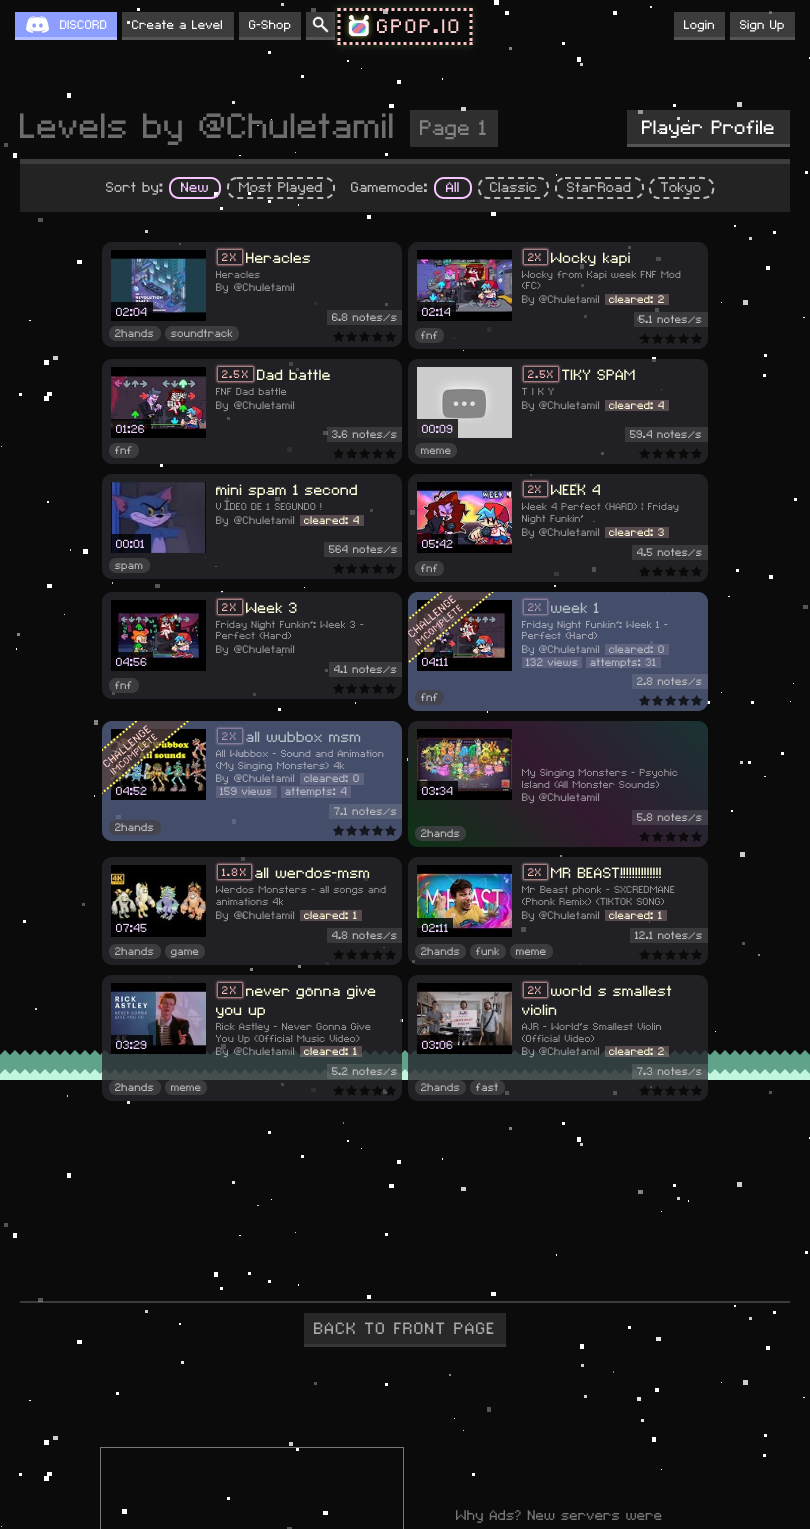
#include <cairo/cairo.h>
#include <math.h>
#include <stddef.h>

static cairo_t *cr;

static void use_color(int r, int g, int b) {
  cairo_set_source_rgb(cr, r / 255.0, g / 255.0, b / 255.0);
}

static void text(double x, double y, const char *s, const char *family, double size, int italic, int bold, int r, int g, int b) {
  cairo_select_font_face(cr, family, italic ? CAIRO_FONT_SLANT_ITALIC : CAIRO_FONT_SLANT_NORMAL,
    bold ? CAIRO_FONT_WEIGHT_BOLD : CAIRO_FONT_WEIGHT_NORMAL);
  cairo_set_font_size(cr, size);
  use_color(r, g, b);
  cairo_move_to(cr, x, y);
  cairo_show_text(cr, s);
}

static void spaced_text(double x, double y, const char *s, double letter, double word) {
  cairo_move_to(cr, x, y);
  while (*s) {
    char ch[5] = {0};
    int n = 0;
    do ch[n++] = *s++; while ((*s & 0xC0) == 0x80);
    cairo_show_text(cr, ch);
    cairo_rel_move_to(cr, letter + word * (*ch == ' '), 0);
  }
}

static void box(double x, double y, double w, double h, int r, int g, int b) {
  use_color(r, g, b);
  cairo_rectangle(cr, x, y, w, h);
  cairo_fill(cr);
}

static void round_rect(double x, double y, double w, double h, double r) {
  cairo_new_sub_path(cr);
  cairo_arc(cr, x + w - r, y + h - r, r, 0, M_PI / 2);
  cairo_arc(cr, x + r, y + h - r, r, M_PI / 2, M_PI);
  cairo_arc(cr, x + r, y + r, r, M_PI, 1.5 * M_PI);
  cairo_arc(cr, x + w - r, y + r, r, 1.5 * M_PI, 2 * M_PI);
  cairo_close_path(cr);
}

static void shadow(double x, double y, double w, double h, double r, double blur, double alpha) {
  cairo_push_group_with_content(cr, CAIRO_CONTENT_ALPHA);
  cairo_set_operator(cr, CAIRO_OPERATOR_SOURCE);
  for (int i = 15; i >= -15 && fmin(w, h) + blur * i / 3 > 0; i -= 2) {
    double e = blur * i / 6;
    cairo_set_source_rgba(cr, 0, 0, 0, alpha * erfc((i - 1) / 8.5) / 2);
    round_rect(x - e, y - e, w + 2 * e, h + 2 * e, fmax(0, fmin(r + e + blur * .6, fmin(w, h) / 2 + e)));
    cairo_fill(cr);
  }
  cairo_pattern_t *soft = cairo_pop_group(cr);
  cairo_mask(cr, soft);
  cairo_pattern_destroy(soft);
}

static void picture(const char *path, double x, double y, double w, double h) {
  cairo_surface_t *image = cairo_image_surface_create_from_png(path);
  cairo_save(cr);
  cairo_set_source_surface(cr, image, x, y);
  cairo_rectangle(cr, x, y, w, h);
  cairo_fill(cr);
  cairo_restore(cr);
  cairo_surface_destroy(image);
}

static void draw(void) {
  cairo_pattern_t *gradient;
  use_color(255, 255, 255);
  cairo_paint(cr);
  picture("img_01.png", 0, 0, 810, 1529);
  box(15, 12, 102, 25, 140, 158, 255);
  box(15, 37, 102, 3, 179, 191, 255);
  picture("img_02.png", 26, 16, 23, 17);
  cairo_set_source_rgba(cr, 1, 1, 1, 0.2);
  cairo_rectangle(cr, 122, 12, 112, 25);
  cairo_fill(cr);
  box(122, 37, 112, 3, 84, 84, 84);
  box(239, 12, 62, 25, 60, 60, 60);
  box(239, 37, 62, 3, 84, 84, 84);
  box(306, 12, 29, 25, 60, 60, 60);
  picture("img_03.png", 312, 16, 17, 17);
  box(306, 37, 29, 3, 84, 84, 84);
  cairo_set_source_rgba(cr, 0, 0, 0, 0.23);
  cairo_rectangle(cr, 343, 9, 45, 35);
  cairo_fill(cr);
  cairo_save(cr);
  cairo_set_fill_rule(cr, CAIRO_FILL_RULE_EVEN_ODD);
  cairo_new_path(cr);
  cairo_move_to(cr, 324, 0);
  cairo_line_to(cr, 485, 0);
  cairo_line_to(cr, 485, 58);
  cairo_line_to(cr, 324, 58);
  cairo_close_path(cr);
  cairo_move_to(cr, 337, 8);
  cairo_line_to(cr, 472, 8);
  cairo_line_to(cr, 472, 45);
  cairo_line_to(cr, 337, 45);
  cairo_close_path(cr);
  cairo_clip(cr);
  use_color(174, 255, 137);
  shadow(340, 11, 129, 31, 0, 5, 0.4);
  cairo_restore(cr);
  cairo_new_path(cr);
  cairo_move_to(cr, 337.5, 9.5);
  cairo_line_to(cr, 472.5, 9.5);
  use_color(255, 197, 197);
  cairo_set_line_width(cr, 3);
  cairo_set_dash(cr, (double[]){3, 3}, 2, 0);
  cairo_stroke(cr);
  cairo_new_path(cr);
  cairo_move_to(cr, 471, 8);
  cairo_line_to(cr, 471, 45);
  cairo_stroke(cr);
  cairo_new_path(cr);
  cairo_move_to(cr, 337.5, 43.5);
  cairo_line_to(cr, 472.5, 43.5);
  cairo_stroke(cr);
  cairo_new_path(cr);
  cairo_move_to(cr, 339, 8);
  cairo_line_to(cr, 339, 45);
  cairo_stroke(cr);
  picture("img_04.png", 344, 11, 30, 30);
  picture("img_05.png", 348, 14, 21, 23);
  box(674, 12, 51, 25, 60, 60, 60);
  box(674, 37, 51, 3, 84, 84, 84);
  cairo_set_source_rgba(cr, 1, 1, 1, 0.2);
  cairo_rectangle(cr, 730, 12, 65, 25);
  cairo_fill(cr);
  box(730, 37, 65, 3, 84, 84, 84);
  box(20, 159, 770, 5, 60, 60, 60);
  cairo_set_source_rgba(cr, 1, 1, 1, 0.15);
  cairo_rectangle(cr, 410, 110, 88, 37);
  cairo_fill(cr);
  cairo_rectangle(cr, 627, 110, 163, 34);
  cairo_fill(cr);
  box(627, 144, 163, 3, 84, 84, 84);
  cairo_set_source_rgba(cr, 1, 1, 1, 0.1);
  cairo_rectangle(cr, 20, 164, 770, 48);
  cairo_fill(cr);
  round_rect(170, 178, 50, 20, 9);
  use_color(245, 198, 255);
  cairo_set_line_width(cr, 2);
  cairo_set_dash(cr, NULL, 0, 0);
  cairo_stroke(cr);
  cairo_new_path(cr);
  cairo_move_to(cr, 237, 178);
  cairo_line_to(cr, 325, 178);
  cairo_curve_to(cr, 330, 178, 334, 182, 334, 187);
  cairo_line_to(cr, 334, 189);
  cairo_curve_to(cr, 334, 194, 330, 198, 325, 198);
  cairo_line_to(cr, 237, 198);
  cairo_curve_to(cr, 232, 198, 228, 194, 228, 189);
  cairo_line_to(cr, 228, 187);
  cairo_curve_to(cr, 228, 182, 232, 178, 237, 178);
  cairo_close_path(cr);
  use_color(189, 189, 189);
  cairo_set_dash(cr, (double[]){6, 4}, 2, 0);
  cairo_stroke(cr);
  round_rect(435, 178, 36, 20, 9);
  use_color(245, 198, 255);
  cairo_set_dash(cr, NULL, 0, 0);
  cairo_stroke(cr);
  cairo_new_path(cr);
  cairo_move_to(cr, 488, 178);
  cairo_line_to(cr, 539, 178);
  cairo_curve_to(cr, 544, 178, 548, 182, 548, 187);
  cairo_line_to(cr, 548, 189);
  cairo_curve_to(cr, 548, 194, 544, 198, 539, 198);
  cairo_line_to(cr, 488, 198);
  cairo_curve_to(cr, 483, 198, 479, 194, 479, 189);
  cairo_line_to(cr, 479, 187);
  cairo_curve_to(cr, 479, 182, 483, 178, 488, 178);
  cairo_close_path(cr);
  use_color(189, 189, 189);
  cairo_set_dash(cr, (double[]){6, 4}, 2, 0);
  cairo_stroke(cr);
  cairo_new_path(cr);
  cairo_move_to(cr, 565, 178);
  cairo_line_to(cr, 634, 178);
  cairo_curve_to(cr, 639, 178, 643, 182, 643, 187);
  cairo_line_to(cr, 643, 189);
  cairo_curve_to(cr, 643, 194, 639, 198, 634, 198);
  cairo_line_to(cr, 565, 198);
  cairo_curve_to(cr, 560, 198, 556, 194, 556, 189);
  cairo_line_to(cr, 556, 187);
  cairo_curve_to(cr, 556, 182, 560, 178, 565, 178);
  cairo_close_path(cr);
  cairo_stroke(cr);
  cairo_new_path(cr);
  cairo_move_to(cr, 659, 178);
  cairo_line_to(cr, 689, 178);
  cairo_curve_to(cr, 698.5, 178, 716, 175, 713, 191);
  cairo_curve_to(cr, 711, 199, 703, 198, 696.5, 198);
  cairo_line_to(cr, 657, 198);
  cairo_curve_to(cr, 646.5, 195.5, 648, 178, 659, 178);
  cairo_close_path(cr);
  cairo_stroke(cr);
  cairo_set_source_rgba(cr, 0.149, 0.149, 0.173, 0.8);
  round_rect(102, 242, 300, 105, 10);
  cairo_fill(cr);
  cairo_save(cr);
  cairo_set_fill_rule(cr, CAIRO_FILL_RULE_EVEN_ODD);
  cairo_new_path(cr);
  cairo_move_to(cr, 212, 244);
  cairo_line_to(cr, 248, 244);
  cairo_line_to(cr, 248, 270);
  cairo_line_to(cr, 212, 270);
  cairo_close_path(cr);
  cairo_move_to(cr, 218, 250);
  cairo_line_to(cr, 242, 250);
  cairo_line_to(cr, 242, 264);
  cairo_line_to(cr, 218, 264);
  cairo_close_path(cr);
  cairo_clip(cr);
  use_color(255, 186, 186);
  shadow(218, 250, 24, 14, 0, 1.5, 1);
  shadow(218, 250, 24, 14, 0, 1.5, 1);
  cairo_restore(cr);
  picture("img_06.png", 230, 253, 6, 8);
  picture("img_07.png", 216, 283, 12, 11);
  picture("img_08.png", 111, 250, 95, 71);
  cairo_set_source_rgba(cr, 0, 0, 0, 0.8);
  cairo_rectangle(cr, 111, 302, 42, 12);
  cairo_fill(cr);
  box(327, 310, 75, 15, 57, 57, 61);
  use_color(59, 59, 64);
  round_rect(109, 326, 52, 15, 7);
  cairo_fill(cr);
  round_rect(165, 326, 74, 15, 7);
  cairo_fill(cr);
  picture("img_09.png", 333, 331, 12, 11);
  picture("img_09.png", 346, 331, 12, 11);
  picture("img_09.png", 359, 331, 12, 11);
  picture("img_09.png", 372, 331, 12, 11);
  picture("img_09.png", 385, 331, 12, 11);
  cairo_set_source_rgba(cr, 0.149, 0.149, 0.173, 0.8);
  round_rect(408, 242, 300, 107, 10);
  cairo_fill(cr);
  cairo_save(cr);
  cairo_set_fill_rule(cr, CAIRO_FILL_RULE_EVEN_ODD);
  cairo_new_path(cr);
  cairo_move_to(cr, 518, 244);
  cairo_line_to(cr, 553, 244);
  cairo_line_to(cr, 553, 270);
  cairo_line_to(cr, 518, 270);
  cairo_close_path(cr);
  cairo_move_to(cr, 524, 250);
  cairo_line_to(cr, 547, 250);
  cairo_line_to(cr, 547, 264);
  cairo_line_to(cr, 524, 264);
  cairo_close_path(cr);
  cairo_clip(cr);
  use_color(255, 186, 186);
  shadow(524, 250, 23, 14, 0, 1.5, 1);
  shadow(524, 250, 23, 14, 0, 1.5, 1);
  cairo_restore(cr);
  picture("img_06.png", 535, 253, 6, 8);
  picture("img_07.png", 522, 295, 12, 11);
  box(605, 294, 64, 11, 86, 74, 78);
  picture("img_10.png", 417, 250, 95, 71);
  cairo_set_source_rgba(cr, 0, 0, 0, 0.8);
  cairo_rectangle(cr, 417, 302, 39, 11);
  cairo_fill(cr);
  cairo_set_source_rgba(cr, 1, 1, 1, 0.11);
  cairo_rectangle(cr, 634, 312, 74, 15);
  cairo_fill(cr);
  use_color(59, 59, 64);
  round_rect(415, 328, 29, 15, 7);
  cairo_fill(cr);
  picture("img_11.png", 639, 333, 12, 11);
  picture("img_09.png", 652, 333, 12, 11);
  picture("img_09.png", 665, 333, 12, 11);
  picture("img_09.png", 678, 333, 12, 11);
  picture("img_09.png", 691, 333, 12, 11);
  cairo_set_source_rgba(cr, 0.149, 0.149, 0.173, 0.8);
  round_rect(102, 359, 300, 105, 10);
  cairo_fill(cr);
  cairo_save(cr);
  cairo_set_fill_rule(cr, CAIRO_FILL_RULE_EVEN_ODD);
  cairo_new_path(cr);
  cairo_move_to(cr, 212, 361);
  cairo_line_to(cr, 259, 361);
  cairo_line_to(cr, 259, 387);
  cairo_line_to(cr, 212, 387);
  cairo_close_path(cr);
  cairo_move_to(cr, 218, 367);
  cairo_line_to(cr, 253, 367);
  cairo_line_to(cr, 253, 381);
  cairo_line_to(cr, 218, 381);
  cairo_close_path(cr);
  cairo_clip(cr);
  use_color(255, 186, 186);
  shadow(218, 367, 35, 14, 0, 1.5, 1);
  shadow(218, 367, 35, 14, 0, 1.5, 1);
  cairo_restore(cr);
  picture("img_06.png", 242, 370, 6, 8);
  picture("img_07.png", 216, 401, 12, 11);
  picture("img_12.png", 111, 367, 95, 71);
  cairo_set_source_rgba(cr, 0, 0, 0, 0.8);
  cairo_rectangle(cr, 111, 419, 40, 11);
  cairo_fill(cr);
  cairo_set_source_rgba(cr, 1, 1, 1, 0.11);
  cairo_rectangle(cr, 327, 427, 75, 15);
  cairo_fill(cr);
  use_color(59, 59, 64);
  round_rect(109, 443, 30, 15, 7);
  cairo_fill(cr);
  picture("img_09.png", 333, 448, 12, 11);
  picture("img_09.png", 346, 448, 12, 11);
  picture("img_09.png", 359, 448, 12, 11);
  picture("img_09.png", 372, 448, 12, 11);
  picture("img_09.png", 385, 448, 12, 11);
  cairo_set_source_rgba(cr, 0.149, 0.149, 0.173, 0.8);
  round_rect(408, 359, 300, 105, 10);
  cairo_fill(cr);
  cairo_save(cr);
  cairo_set_fill_rule(cr, CAIRO_FILL_RULE_EVEN_ODD);
  cairo_new_path(cr);
  cairo_move_to(cr, 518, 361);
  cairo_line_to(cr, 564, 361);
  cairo_line_to(cr, 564, 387);
  cairo_line_to(cr, 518, 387);
  cairo_close_path(cr);
  cairo_move_to(cr, 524, 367);
  cairo_line_to(cr, 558, 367);
  cairo_line_to(cr, 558, 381);
  cairo_line_to(cr, 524, 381);
  cairo_close_path(cr);
  cairo_clip(cr);
  use_color(255, 186, 186);
  shadow(524, 367, 34, 14, 0, 1.5, 1);
  shadow(524, 367, 34, 14, 0, 1.5, 1);
  cairo_restore(cr);
  picture("img_06.png", 547, 370, 6, 8);
  picture("img_07.png", 522, 401, 12, 11);
  box(605, 400, 64, 11, 86, 74, 78);
  picture("img_13.png", 417, 367, 95, 71);
  cairo_set_source_rgba(cr, 0, 0, 0, 0.8);
  cairo_rectangle(cr, 417, 419, 41, 19);
  cairo_fill(cr);
  box(625, 427, 83, 15, 57, 57, 61);
  use_color(59, 59, 64);
  round_rect(415, 443, 42, 15, 7);
  cairo_fill(cr);
  picture("img_09.png", 639, 448, 12, 11);
  picture("img_09.png", 652, 448, 12, 11);
  picture("img_09.png", 665, 448, 12, 11);
  picture("img_09.png", 678, 448, 12, 11);
  picture("img_09.png", 691, 448, 12, 11);
  cairo_set_source_rgba(cr, 0.149, 0.149, 0.173, 0.8);
  round_rect(102, 474, 300, 105, 10);
  cairo_fill(cr);
  picture("img_07.png", 216, 516, 12, 11);
  box(300, 515, 64, 11, 86, 74, 78);
  picture("img_14.png", 111, 482, 95, 71);
  cairo_set_source_rgba(cr, 0, 0, 0, 0.8);
  cairo_rectangle(cr, 111, 534, 40, 19);
  cairo_fill(cr);
  box(324, 542, 78, 15, 57, 57, 61);
  use_color(59, 59, 64);
  round_rect(109, 558, 41, 15, 7);
  cairo_fill(cr);
  picture("img_09.png", 333, 563, 12, 11);
  picture("img_09.png", 346, 563, 12, 11);
  picture("img_09.png", 359, 563, 12, 11);
  picture("img_09.png", 372, 563, 12, 11);
  picture("img_09.png", 385, 563, 12, 11);
  cairo_set_source_rgba(cr, 0.149, 0.149, 0.173, 0.8);
  round_rect(408, 474, 300, 108, 10);
  cairo_fill(cr);
  cairo_save(cr);
  cairo_set_fill_rule(cr, CAIRO_FILL_RULE_EVEN_ODD);
  cairo_new_path(cr);
  cairo_move_to(cr, 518, 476);
  cairo_line_to(cr, 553, 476);
  cairo_line_to(cr, 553, 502);
  cairo_line_to(cr, 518, 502);
  cairo_close_path(cr);
  cairo_move_to(cr, 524, 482);
  cairo_line_to(cr, 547, 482);
  cairo_line_to(cr, 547, 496);
  cairo_line_to(cr, 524, 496);
  cairo_close_path(cr);
  cairo_clip(cr);
  use_color(255, 186, 186);
  shadow(524, 482, 23, 14, 0, 1.5, 1);
  shadow(524, 482, 23, 14, 0, 1.5, 1);
  cairo_restore(cr);
  picture("img_06.png", 535, 485, 6, 8);
  picture("img_07.png", 522, 528, 12, 11);
  box(605, 527, 64, 11, 86, 74, 78);
  picture("img_15.png", 417, 482, 95, 71);
  cairo_set_source_rgba(cr, 0, 0, 0, 0.8);
  cairo_rectangle(cr, 417, 534, 41, 12);
  cairo_fill(cr);
  box(632, 545, 76, 15, 57, 57, 61);
  use_color(59, 59, 64);
  round_rect(415, 561, 29, 15, 7);
  cairo_fill(cr);
  picture("img_09.png", 639, 566, 12, 11);
  picture("img_09.png", 652, 566, 12, 11);
  picture("img_09.png", 665, 566, 12, 11);
  picture("img_09.png", 678, 566, 12, 11);
  picture("img_09.png", 691, 566, 12, 11);
  cairo_set_source_rgba(cr, 0.149, 0.149, 0.173, 0.8);
  round_rect(102, 592, 300, 107, 10);
  cairo_fill(cr);
  cairo_save(cr);
  cairo_set_fill_rule(cr, CAIRO_FILL_RULE_EVEN_ODD);
  cairo_new_path(cr);
  cairo_move_to(cr, 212, 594);
  cairo_line_to(cr, 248, 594);
  cairo_line_to(cr, 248, 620);
  cairo_line_to(cr, 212, 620);
  cairo_close_path(cr);
  cairo_move_to(cr, 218, 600);
  cairo_line_to(cr, 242, 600);
  cairo_line_to(cr, 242, 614);
  cairo_line_to(cr, 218, 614);
  cairo_close_path(cr);
  cairo_clip(cr);
  use_color(255, 186, 186);
  shadow(218, 600, 24, 14, 0, 1.5, 1);
  shadow(218, 600, 24, 14, 0, 1.5, 1);
  cairo_restore(cr);
  picture("img_06.png", 230, 603, 6, 8);
  picture("img_07.png", 216, 645, 12, 11);
  picture("img_16.png", 111, 600, 95, 71);
  cairo_set_source_rgba(cr, 0, 0, 0, 0.8);
  cairo_rectangle(cr, 113, 652, 40, 12);
  cairo_fill(cr);
  box(329, 662, 73, 15, 57, 57, 61);
  cairo_set_source_rgba(cr, 0.259, 0.259, 0.278, 0.8);
  round_rect(109, 678, 30, 15, 7);
  cairo_fill(cr);
  picture("img_09.png", 333, 683, 12, 11);
  picture("img_09.png", 346, 683, 12, 11);
  picture("img_09.png", 359, 683, 12, 11);
  picture("img_09.png", 372, 683, 12, 11);
  picture("img_09.png", 385, 683, 12, 11);
  cairo_set_source_rgba(cr, 0.149, 0.149, 0.173, 0.8);
  round_rect(408, 592, 300, 119, 10);
  cairo_fill(cr);
  cairo_save(cr);
  cairo_set_fill_rule(cr, CAIRO_FILL_RULE_EVEN_ODD);
  cairo_new_path(cr);
  cairo_move_to(cr, 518, 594);
  cairo_line_to(cr, 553, 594);
  cairo_line_to(cr, 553, 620);
  cairo_line_to(cr, 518, 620);
  cairo_close_path(cr);
  cairo_move_to(cr, 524, 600);
  cairo_line_to(cr, 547, 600);
  cairo_line_to(cr, 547, 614);
  cairo_line_to(cr, 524, 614);
  cairo_close_path(cr);
  cairo_clip(cr);
  use_color(255, 186, 186);
  shadow(524, 600, 23, 14, 0, 1.5, 1);
  shadow(524, 600, 23, 14, 0, 1.5, 1);
  cairo_restore(cr);
  picture("img_06.png", 535, 603, 6, 8);
  box(605, 644, 64, 11, 86, 74, 78);
  box(522, 657, 60, 11, 86, 74, 78);
  box(586, 657, 75, 11, 86, 74, 78);
  cairo_set_source_rgba(cr, 0.149, 0.149, 0.173, 0.8);
  round_rect(102, 721, 300, 120, 10);
  cairo_fill(cr);
  cairo_save(cr);
  cairo_set_fill_rule(cr, CAIRO_FILL_RULE_EVEN_ODD);
  cairo_new_path(cr);
  cairo_move_to(cr, 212, 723);
  cairo_line_to(cr, 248, 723);
  cairo_line_to(cr, 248, 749);
  cairo_line_to(cr, 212, 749);
  cairo_close_path(cr);
  cairo_move_to(cr, 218, 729);
  cairo_line_to(cr, 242, 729);
  cairo_line_to(cr, 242, 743);
  cairo_line_to(cr, 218, 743);
  cairo_close_path(cr);
  cairo_clip(cr);
  use_color(255, 186, 186);
  shadow(218, 729, 24, 14, 0, 1.5, 1);
  shadow(218, 729, 24, 14, 0, 1.5, 1);
  cairo_restore(cr);
  picture("img_06.png", 230, 732, 6, 8);
  box(300, 773, 64, 12, 86, 74, 78);
  box(216, 786, 61, 12, 86, 74, 78);
  box(281, 786, 70, 12, 86, 74, 78);
  gradient = cairo_pattern_create_linear(452, 891, 665, 678);
  cairo_pattern_add_color_stop_rgba(gradient, 0, 0.051, 0.2, 0.086, 1);
  cairo_pattern_add_color_stop_rgba(gradient, 0.5, 0.2, 0.098, 0.184, 1);
  cairo_pattern_add_color_stop_rgba(gradient, 1, 0.102, 0.2, 0.2, 1);
  cairo_set_source(cr, gradient);
  cairo_pattern_destroy(gradient);
  round_rect(408, 721, 300, 126, 10);
  cairo_fill(cr);
  picture("img_21.png", 417, 729, 95, 71);
  cairo_set_source_rgba(cr, 0, 0, 0, 0.8);
  cairo_rectangle(cr, 417, 781, 41, 11);
  cairo_fill(cr);
  picture("img_22.png", 522, 793, 12, 11);
  cairo_set_source_rgba(cr, 1, 1, 1, 0.11);
  cairo_rectangle(cr, 632, 810, 76, 15);
  cairo_fill(cr);
  cairo_set_source_rgba(cr, 0.259, 0.259, 0.278, 0.8);
  round_rect(415, 826, 51, 15, 7);
  cairo_fill(cr);
  picture("img_23.png", 639, 831, 12, 11);
  picture("img_24.png", 652, 831, 12, 11);
  picture("img_25.png", 665, 831, 12, 11);
  picture("img_26.png", 678, 831, 12, 11);
  picture("img_27.png", 691, 831, 12, 11);
  cairo_set_source_rgba(cr, 0.149, 0.149, 0.173, 0.8);
  round_rect(102, 857, 300, 108, 10);
  cairo_fill(cr);
  cairo_save(cr);
  cairo_set_fill_rule(cr, CAIRO_FILL_RULE_EVEN_ODD);
  cairo_new_path(cr);
  cairo_move_to(cr, 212, 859);
  cairo_line_to(cr, 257, 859);
  cairo_line_to(cr, 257, 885);
  cairo_line_to(cr, 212, 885);
  cairo_close_path(cr);
  cairo_move_to(cr, 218, 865);
  cairo_line_to(cr, 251, 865);
  cairo_line_to(cr, 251, 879);
  cairo_line_to(cr, 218, 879);
  cairo_close_path(cr);
  cairo_clip(cr);
  use_color(255, 186, 186);
  shadow(218, 865, 33, 14, 0, 1.5, 1);
  shadow(218, 865, 33, 14, 0, 1.5, 1);
  cairo_restore(cr);
  picture("img_06.png", 240, 868, 6, 8);
  picture("img_07.png", 216, 911, 12, 11);
  box(300, 910, 62, 11, 86, 74, 78);
  picture("img_28.png", 111, 865, 95, 72);
  cairo_set_source_rgba(cr, 0, 0, 0, 0.8);
  cairo_rectangle(cr, 111, 918, 38, 11);
  cairo_fill(cr);
  box(327, 928, 75, 15, 57, 57, 61);
  use_color(59, 59, 64);
  round_rect(109, 944, 52, 15, 7);
  cairo_fill(cr);
  round_rect(165, 944, 40, 15, 7);
  cairo_fill(cr);
  picture("img_09.png", 333, 949, 12, 11);
  picture("img_09.png", 346, 949, 12, 11);
  picture("img_09.png", 359, 949, 12, 11);
  picture("img_09.png", 372, 949, 12, 11);
  picture("img_09.png", 385, 949, 12, 11);
  cairo_set_source_rgba(cr, 0.149, 0.149, 0.173, 0.8);
  round_rect(408, 857, 300, 108, 10);
  cairo_fill(cr);
  cairo_save(cr);
  cairo_set_fill_rule(cr, CAIRO_FILL_RULE_EVEN_ODD);
  cairo_new_path(cr);
  cairo_move_to(cr, 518, 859);
  cairo_line_to(cr, 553, 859);
  cairo_line_to(cr, 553, 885);
  cairo_line_to(cr, 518, 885);
  cairo_close_path(cr);
  cairo_move_to(cr, 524, 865);
  cairo_line_to(cr, 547, 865);
  cairo_line_to(cr, 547, 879);
  cairo_line_to(cr, 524, 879);
  cairo_close_path(cr);
  cairo_clip(cr);
  use_color(255, 186, 186);
  shadow(524, 865, 23, 14, 0, 1.5, 1);
  shadow(524, 865, 23, 14, 0, 1.5, 1);
  cairo_restore(cr);
  picture("img_06.png", 535, 868, 6, 8);
  picture("img_07.png", 522, 911, 12, 11);
  box(605, 910, 62, 11, 86, 74, 78);
  picture("img_29.png", 417, 865, 95, 72);
  cairo_set_source_rgba(cr, 0, 0, 0, 0.8);
  cairo_rectangle(cr, 417, 918, 36, 12);
  cairo_fill(cr);
  box(630, 928, 78, 15, 57, 57, 61);
  use_color(59, 59, 64);
  round_rect(415, 944, 51, 15, 7);
  cairo_fill(cr);
  round_rect(470, 944, 36, 15, 7);
  cairo_fill(cr);
  cairo_set_source_rgba(cr, 0.259, 0.259, 0.278, 0.8);
  round_rect(510, 944, 43, 15, 7);
  cairo_fill(cr);
  picture("img_09.png", 639, 949, 12, 11);
  picture("img_09.png", 652, 949, 12, 11);
  picture("img_09.png", 665, 949, 12, 11);
  picture("img_09.png", 678, 949, 12, 11);
  picture("img_09.png", 691, 949, 12, 11);
  cairo_set_source_rgba(cr, 0.149, 0.149, 0.173, 0.8);
  round_rect(102, 975, 300, 126, 10);
  cairo_fill(cr);
  picture("img_30.png", 111, 983, 95, 71);
  cairo_set_source_rgba(cr, 0, 0, 0, 0.8);
  cairo_rectangle(cr, 111, 1035, 42, 12);
  cairo_fill(cr);
  cairo_save(cr);
  cairo_set_fill_rule(cr, CAIRO_FILL_RULE_EVEN_ODD);
  cairo_new_path(cr);
  cairo_move_to(cr, 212, 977);
  cairo_line_to(cr, 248, 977);
  cairo_line_to(cr, 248, 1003);
  cairo_line_to(cr, 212, 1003);
  cairo_close_path(cr);
  cairo_move_to(cr, 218, 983);
  cairo_line_to(cr, 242, 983);
  cairo_line_to(cr, 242, 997);
  cairo_line_to(cr, 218, 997);
  cairo_close_path(cr);
  cairo_clip(cr);
  use_color(255, 186, 186);
  shadow(218, 983, 24, 14, 0, 1.5, 1);
  shadow(218, 983, 24, 14, 0, 1.5, 1);
  cairo_restore(cr);
  picture("img_06.png", 230, 986, 6, 8);
  picture("img_31.png", 216, 1047, 12, 11);
  cairo_set_source_rgba(cr, 1, 0.804, 0.804, 0.24);
  cairo_rectangle(cr, 300, 1046, 62, 11);
  cairo_fill(cr);
  cairo_set_source_rgba(cr, 1, 1, 1, 0.11);
  cairo_rectangle(cr, 327, 1064, 75, 15);
  cairo_fill(cr);
  cairo_set_source_rgba(cr, 0.259, 0.259, 0.278, 0.8);
  round_rect(109, 1080, 52, 15, 7);
  cairo_fill(cr);
  use_color(59, 59, 64);
  round_rect(165, 1080, 42, 15, 7);
  cairo_fill(cr);
  picture("img_09.png", 333, 1085, 12, 11);
  picture("img_09.png", 346, 1085, 12, 11);
  picture("img_09.png", 359, 1085, 12, 11);
  picture("img_32.png", 372, 1085, 12, 11);
  picture("img_33.png", 385, 1085, 12, 11);
  cairo_set_source_rgba(cr, 0.149, 0.149, 0.173, 0.8);
  round_rect(408, 975, 300, 126, 10);
  cairo_fill(cr);
  picture("img_34.png", 417, 983, 95, 71);
  cairo_set_source_rgba(cr, 0, 0, 0, 0.8);
  cairo_rectangle(cr, 417, 1035, 41, 11);
  cairo_fill(cr);
  cairo_save(cr);
  cairo_set_fill_rule(cr, CAIRO_FILL_RULE_EVEN_ODD);
  cairo_new_path(cr);
  cairo_move_to(cr, 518, 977);
  cairo_line_to(cr, 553, 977);
  cairo_line_to(cr, 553, 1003);
  cairo_line_to(cr, 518, 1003);
  cairo_close_path(cr);
  cairo_move_to(cr, 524, 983);
  cairo_line_to(cr, 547, 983);
  cairo_line_to(cr, 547, 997);
  cairo_line_to(cr, 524, 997);
  cairo_close_path(cr);
  cairo_clip(cr);
  use_color(255, 186, 186);
  shadow(524, 983, 23, 14, 0, 1.5, 1);
  shadow(524, 983, 23, 14, 0, 1.5, 1);
  cairo_restore(cr);
  picture("img_06.png", 535, 986, 6, 8);
  picture("img_35.png", 522, 1047, 12, 11);
  cairo_set_source_rgba(cr, 1, 0.804, 0.804, 0.24);
  cairo_rectangle(cr, 605, 1046, 64, 11);
  cairo_fill(cr);
  cairo_set_source_rgba(cr, 1, 1, 1, 0.11);
  cairo_rectangle(cr, 632, 1064, 76, 15);
  cairo_fill(cr);
  use_color(59, 59, 64);
  round_rect(415, 1080, 51, 15, 7);
  cairo_fill(cr);
  cairo_set_source_rgba(cr, 0.259, 0.259, 0.278, 0.8);
  round_rect(470, 1080, 35, 15, 7);
  cairo_fill(cr);
  picture("img_36.png", 639, 1085, 12, 11);
  picture("img_09.png", 652, 1085, 12, 11);
  picture("img_09.png", 665, 1085, 12, 11);
  picture("img_09.png", 678, 1085, 12, 11);
  picture("img_09.png", 691, 1085, 12, 11);
  cairo_set_source_rgba(cr, 1, 1, 1, 0.2);
  cairo_rectangle(cr, 20, 1301, 770, 2);
  cairo_fill(cr);
  cairo_set_source_rgba(cr, 1, 1, 1, 0.12);
  cairo_rectangle(cr, 304, 1313, 202, 31);
  cairo_fill(cr);
  box(304, 1344, 202, 3, 55, 55, 55);
  cairo_rectangle(cr, 100.5, 1447.5, 303, 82);
  use_color(119, 119, 119);
  cairo_set_line_width(cr, 1);
  cairo_set_dash(cr, NULL, 0, 0);
  cairo_stroke(cr);
  text(60, 29, "DISCORD", "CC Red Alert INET", 16, 0, 0, 255, 255, 255);
  text(132, 29, "Create a Level", "CC Red Alert INET", 16, 0, 0, 255, 255, 255);
  text(249, 29, "G-Shop", "CC Red Alert INET", 16, 0, 0, 255, 255, 255);
  cairo_set_font_size(cr, 25);
  use_color(255, 207, 207);
  spaced_text(377, 33, "GPOP.IO", 2.5, 0);
  text(684, 29, "Login", "CC Red Alert INET", 16, 0, 0, 255, 255, 255);
  text(740, 29, "Sign Up", "CC Red Alert INET", 16, 0, 0, 255, 255, 255);
  text(20, 138, "Levels by @Chuletamil", "CC Red Alert INET", 45, 0, 0, 109, 109, 109);
  text(420, 135, "Page 1", "CC Red Alert INET", 27, 0, 0, 131, 131, 131);
  text(642, 134, "Player Profile", "CC Red Alert INET", 24.75, 0, 0, 255, 255, 255);
  text(106, 192, "Sort by:", "CC Red Alert INET", 18, 0, 0, 189, 189, 189);
  text(181, 192, "New", "CC Red Alert INET", 18, 0, 0, 245, 198, 255);
  text(239, 192, "Most Played", "CC Red Alert INET", 18, 0, 0, 189, 189, 189);
  text(351, 192, "Gamemode:", "CC Red Alert INET", 18, 0, 0, 189, 189, 189);
  text(446, 192, "All", "CC Red Alert INET", 18, 0, 0, 245, 198, 255);
  text(490, 192, "Classic", "CC Red Alert INET", 18, 0, 0, 189, 189, 189);
  text(567, 192, "StarRoad", "CC Red Alert INET", 18, 0, 0, 189, 189, 189);
  text(661, 192, "Tokyo", "CC Red Alert INET", 18, 0, 0, 189, 189, 189);
  cairo_set_font_size(cr, 14);
  use_color(255, 186, 186);
  spaced_text(222, 261, "2", 1, 0);
  text(246, 263, "Heracles", "CC Red Alert INET", 19, 0, 0, 255, 255, 218);
  text(216, 278, "Heracles", "CC Red Alert INET", 13, 0, 0, 144, 144, 146);
  text(234, 291, "@Chuletamil", "CC Red Alert INET", 14, 0, 0, 144, 144, 146);
  text(116, 316, "02:04", "CC Red Alert INET", 15, 0, 0, 238, 208, 255);
  text(332, 321, "6.8 notes/s", "CC Red Alert INET", 14, 0, 0, 189, 189, 189);
  text(115, 337, "2hands", "CC Red Alert INET", 14, 0, 0, 183, 183, 184);
  text(171, 337, "soundtrack", "CC Red Alert INET", 14, 0, 0, 183, 183, 184);
  use_color(255, 186, 186);
  spaced_text(528, 261, "2", 1, 0);
  text(551, 263, "Wocky kapi", "CC Red Alert INET", 19, 0, 0, 255, 255, 218);
  cairo_save(cr);
  cairo_rectangle(cr, 522, 265, 177, 27);
  cairo_clip(cr);
  text(522, 278, "Wocky from Kapi week FNF Mod", "CC Red Alert INET", 13, 0, 0, 144, 144, 146);
  text(522, 289, "(FC)", "CC Red Alert INET", 13, 0, 0, 144, 144, 146);
  cairo_restore(cr);
  text(539, 303, "@Chuletamil", "CC Red Alert INET", 14, 0, 0, 144, 144, 146);
  text(609, 303, "cleared: 2", "CC Red Alert INET", 14, 0, 0, 255, 255, 218);
  text(422, 316, "02:14", "CC Red Alert INET", 15, 0, 0, 238, 208, 255);
  text(639, 323, "5.1 notes/s", "CC Red Alert INET", 14, 0, 0, 189, 189, 189);
  text(421, 339, "fnf", "CC Red Alert INET", 14, 0, 0, 183, 183, 184);
  use_color(255, 186, 186);
  spaced_text(222, 378, "2.5", 1, 0);
  text(257, 380, "Dad battle", "CC Red Alert INET", 19, 0, 0, 255, 255, 218);
  text(216, 395, "FNF Dad battle", "CC Red Alert INET", 13, 0, 0, 144, 144, 146);
  text(234, 409, "@Chuletamil", "CC Red Alert INET", 14, 0, 0, 144, 144, 146);
  text(116, 433, "01:26", "CC Red Alert INET", 15, 0, 0, 238, 208, 255);
  text(332, 438, "3.6 notes/s", "CC Red Alert INET", 14, 0, 0, 189, 189, 189);
  text(115, 454, "fnf", "CC Red Alert INET", 14, 0, 0, 183, 183, 184);
  use_color(255, 186, 186);
  spaced_text(528, 378, "2.5", 1, 0);
  text(562, 380, "TIKY SPAM", "CC Red Alert INET", 19, 0, 0, 255, 255, 218);
  text(522, 395, "T I K Y", "CC Red Alert INET", 13, 0, 0, 144, 144, 146);
  text(539, 409, "@Chuletamil", "CC Red Alert INET", 14, 0, 0, 144, 144, 146);
  text(609, 409, "cleared: 4", "CC Red Alert INET", 14, 0, 0, 255, 255, 218);
  text(422, 433, "00:09", "CC Red Alert INET", 15, 0, 0, 238, 208, 255);
  text(630, 438, "59.4 notes/s", "CC Red Alert INET", 14, 0, 0, 189, 189, 189);
  text(421, 454, "meme", "CC Red Alert INET", 14, 0, 0, 183, 183, 184);
  text(216, 495, "mini spam 1 second", "CC Red Alert INET", 19, 0, 0, 255, 255, 218);
  text(216, 510, "V", "CC Red Alert INET", 13, 0, 0, 144, 144, 146);
  text(223, 510, "Í", "DejaVu Sans Mono", 13, 0, 0, 144, 144, 146);
  text(230, 510, "DEO DE 1 SEGUNDO !", "CC Red Alert INET", 13, 0, 0, 144, 144, 146);
  text(234, 524, "@Chuletamil", "CC Red Alert INET", 14, 0, 0, 144, 144, 146);
  text(304, 524, "cleared: 4", "CC Red Alert INET", 14, 0, 0, 255, 255, 218);
  text(116, 548, "00:01", "CC Red Alert INET", 15, 0, 0, 238, 208, 255);
  text(329, 553, "564 notes/s", "CC Red Alert INET", 14, 0, 0, 189, 189, 189);
  text(115, 569, "spam", "CC Red Alert INET", 14, 0, 0, 183, 183, 184);
  use_color(255, 186, 186);
  spaced_text(528, 493, "2", 1, 0);
  text(551, 495, "WEEK 4", "CC Red Alert INET", 19, 0, 0, 255, 255, 218);
  cairo_save(cr);
  cairo_rectangle(cr, 522, 497, 177, 28);
  cairo_clip(cr);
  text(522, 510, "Week 4 Perfect (HARD) | Friday", "CC Red Alert INET", 13, 0, 0, 144, 144, 146);
  text(522, 522, "Night Funkin'", "CC Red Alert INET", 13, 0, 0, 144, 144, 146);
  cairo_restore(cr);
  text(539, 536, "@Chuletamil", "CC Red Alert INET", 14, 0, 0, 144, 144, 146);
  text(609, 536, "cleared: 3", "CC Red Alert INET", 14, 0, 0, 255, 255, 218);
  text(422, 548, "05:42", "CC Red Alert INET", 15, 0, 0, 238, 208, 255);
  text(637, 556, "4.5 notes/s", "CC Red Alert INET", 14, 0, 0, 189, 189, 189);
  text(421, 572, "fnf", "CC Red Alert INET", 14, 0, 0, 183, 183, 184);
  use_color(255, 186, 186);
  spaced_text(222, 611, "2", 1, 0);
  text(246, 613, "Week 3", "CC Red Alert INET", 19, 0, 0, 255, 255, 218);
  text(216, 628, "Friday Night Funkin': Week 3 -", "CC Red Alert INET", 13, 0, 0, 144, 144, 146);
  text(216, 639, "Perfect (Hard)", "CC Red Alert INET", 13, 0, 0, 144, 144, 146);
  text(234, 653, "@Chuletamil", "CC Red Alert INET", 14, 0, 0, 144, 144, 146);
  text(116, 666, "04:56", "CC Red Alert INET", 15, 0, 0, 238, 208, 255);
  text(334, 673, "4.1 notes/s", "CC Red Alert INET", 14, 0, 0, 189, 189, 189);
  text(115, 689, "fnf", "CC Red Alert INET", 14, 0, 0, 183, 183, 184);
  use_color(255, 186, 186);
  spaced_text(528, 611, "2", 1, 0);
  text(551, 613, "week 1", "CC Red Alert INET", 19, 0, 0, 255, 255, 218);
  text(609, 653, "cleared: 0", "CC Red Alert INET", 14, 0, 0, 255, 255, 218);
  text(526, 666, "132 views", "CC Red Alert INET", 14, 0, 0, 255, 255, 218);
  text(590, 666, "attempts: 31", "CC Red Alert INET", 14, 0, 0, 255, 255, 218);
  cairo_set_source_rgba(cr, 0.412, 0.478, 0.682, 0.5);
  round_rect(408, 592, 300, 119, 10);
  cairo_fill(cr);
  text(539, 653, "@Chuletamil", "CC Red Alert INET", 14, 0, 0, 162, 166, 180);
  picture("img_17.png", 522, 645, 12, 11);
  cairo_save(cr);
  cairo_rectangle(cr, 522, 615, 177, 27);
  cairo_clip(cr);
  text(522, 639, "Perfect (Hard)", "CC Red Alert INET", 13, 0, 0, 162, 166, 180);
  text(522, 628, "Friday Night Funkin': Week 1 -", "CC Red Alert INET", 13, 0, 0, 162, 166, 180);
  cairo_restore(cr);
  picture("img_18.png", 417, 600, 95, 71);
  cairo_set_source_rgba(cr, 0, 0, 0, 0.8);
  cairo_rectangle(cr, 422, 652, 31, 11);
  cairo_fill(cr);
  text(422, 666, "04:11", "CC Red Alert INET", 15, 0, 0, 238, 208, 255);
  cairo_set_source_rgba(cr, 0.333, 0.255, 0.255, 0.75);
  cairo_new_path(cr);
  cairo_move_to(cr, 494, 592);
  cairo_line_to(cr, 408, 664);
  cairo_line_to(cr, 408, 618);
  cairo_line_to(cr, 439, 592);
  cairo_close_path(cr);
  cairo_fill(cr);
  cairo_save(cr);
  round_rect(408, 592, 300, 119, 10);
  cairo_clip(cr);
  cairo_new_path(cr);
  cairo_move_to(cr, 342, 675);
  cairo_line_to(cr, 506, 537.5);
  use_color(255, 255, 93);
  cairo_set_line_width(cr, 2);
  cairo_set_dash(cr, (double[]){2, 2}, 2, 0);
  cairo_stroke(cr);
  cairo_new_path(cr);
  cairo_move_to(cr, 363, 700.5);
  cairo_line_to(cr, 527, 563);
  cairo_stroke(cr);
  cairo_restore(cr);
  cairo_set_font_size(cr, 14);
  use_color(255, 207, 207);
  cairo_save(cr);
  cairo_translate(cr, 412, 638);
  cairo_rotate(cr, -40 * M_PI / 180);
  spaced_text(0, 0, "CHALLENGE", 0.5, 0);
  cairo_restore(cr);
  cairo_set_font_size(cr, 12);
  cairo_save(cr);
  cairo_translate(cr, 419, 646);
  cairo_rotate(cr, -40 * M_PI / 180);
  spaced_text(0, 0, "IMCOMPLETE", 0.5, 0);
  cairo_restore(cr);
  box(632, 674, 76, 15, 89, 97, 122);
  text(637, 685, "2.8 notes/s", "CC Red Alert INET", 14, 0, 0, 189, 189, 189);
  use_color(67, 68, 78);
  round_rect(415, 690, 29, 15, 7);
  cairo_fill(cr);
  text(421, 701, "fnf", "CC Red Alert INET", 14, 0, 0, 191, 192, 198);
  picture("img_19.png", 638, 694, 13, 12);
  picture("img_19.png", 651, 694, 13, 12);
  picture("img_19.png", 664, 694, 13, 12);
  picture("img_19.png", 677, 694, 13, 12);
  picture("img_19.png", 690, 694, 13, 12);
  use_color(255, 186, 186);
  spaced_text(222, 740, "2", 1, 0);
  text(246, 742, "all wubbox msm", "CC Red Alert INET", 19, 0, 0, 255, 255, 218);
  text(304, 782, "cleared: 0", "CC Red Alert INET", 14, 0, 0, 255, 255, 218);
  text(220, 795, "159 views", "CC Red Alert INET", 14, 0, 0, 255, 255, 218);
  text(285, 795, "attempts: 4", "CC Red Alert INET", 14, 0, 0, 255, 255, 218);
  cairo_set_source_rgba(cr, 0.412, 0.478, 0.682, 0.5);
  round_rect(102, 721, 300, 120, 10);
  cairo_fill(cr);
  text(234, 782, "@Chuletamil", "CC Red Alert INET", 14, 0, 0, 162, 166, 180);
  picture("img_17.png", 216, 774, 12, 11);
  text(216, 769, "(My Singing Monsters) 4k", "CC Red Alert INET", 13, 0, 0, 162, 166, 180);
  text(216, 757, "All Wubbox - Sound and Animation", "CC Red Alert INET", 13, 0, 0, 162, 166, 180);
  picture("img_20.png", 111, 729, 95, 71);
  cairo_set_source_rgba(cr, 0, 0, 0, 0.8);
  cairo_rectangle(cr, 111, 781, 42, 12);
  cairo_fill(cr);
  text(116, 795, "04:52", "CC Red Alert INET", 15, 0, 0, 238, 208, 255);
  cairo_set_source_rgba(cr, 0.333, 0.255, 0.255, 0.75);
  cairo_new_path(cr);
  cairo_move_to(cr, 190, 721);
  cairo_line_to(cr, 102, 795);
  cairo_line_to(cr, 102, 748);
  cairo_line_to(cr, 135, 721);
  cairo_close_path(cr);
  cairo_fill(cr);
  cairo_save(cr);
  round_rect(102, 721, 300, 120, 10);
  cairo_clip(cr);
  cairo_new_path(cr);
  cairo_move_to(cr, 37, 804.5);
  cairo_line_to(cr, 201, 667);
  use_color(255, 255, 93);
  cairo_set_line_width(cr, 2);
  cairo_set_dash(cr, (double[]){2, 2}, 2, 0);
  cairo_stroke(cr);
  cairo_new_path(cr);
  cairo_move_to(cr, 58, 830);
  cairo_line_to(cr, 222, 692.5);
  cairo_stroke(cr);
  cairo_restore(cr);
  cairo_set_font_size(cr, 14);
  use_color(255, 207, 207);
  cairo_save(cr);
  cairo_translate(cr, 107, 768);
  cairo_rotate(cr, -40 * M_PI / 180);
  spaced_text(0, 0, "CHALLENGE", 0.5, 0);
  cairo_restore(cr);
  cairo_set_font_size(cr, 12);
  cairo_save(cr);
  cairo_translate(cr, 114, 775);
  cairo_rotate(cr, -40 * M_PI / 180);
  spaced_text(0, 0, "IMCOMPLETE", 0.5, 0);
  cairo_restore(cr);
  box(329, 804, 73, 15, 89, 97, 122);
  text(334, 815, "7.1 notes/s", "CC Red Alert INET", 14, 0, 0, 189, 189, 189);
  use_color(67, 68, 78);
  round_rect(109, 820, 52, 15, 7);
  cairo_fill(cr);
  text(115, 831, "2hands", "CC Red Alert INET", 14, 0, 0, 191, 192, 198);
  picture("img_19.png", 332, 824, 13, 12);
  picture("img_19.png", 345, 824, 13, 12);
  picture("img_19.png", 358, 824, 13, 12);
  picture("img_19.png", 371, 824, 13, 12);
  picture("img_19.png", 384, 824, 13, 12);
  text(422, 795, "03:34", "CC Red Alert INET", 15, 0, 0, 238, 208, 255);
  cairo_save(cr);
  cairo_rectangle(cr, 522, 763, 177, 27);
  cairo_clip(cr);
  text(522, 776, "My Singing Monsters - Psychic", "CC Red Alert INET", 13, 0, 0, 150, 143, 151);
  text(522, 788, "Island (All Monster Sounds)", "CC Red Alert INET", 13, 0, 0, 150, 143, 151);
  cairo_restore(cr);
  text(539, 801, "@Chuletamil", "CC Red Alert INET", 14, 0, 0, 150, 143, 151);
  text(637, 821, "5.8 notes/s", "CC Red Alert INET", 14, 0, 0, 189, 189, 189);
  text(421, 837, "2hands", "CC Red Alert INET", 14, 0, 0, 189, 189, 189);
  use_color(255, 186, 186);
  spaced_text(222, 876, "1.8", 1, 0);
  text(255, 878, "all werdos-msm", "CC Red Alert INET", 19, 0, 0, 255, 255, 218);
  text(216, 893, "Werdos Monsters - all songs and", "CC Red Alert INET", 13, 0, 0, 144, 144, 146);
  text(216, 905, "animations 4k", "CC Red Alert INET", 13, 0, 0, 144, 144, 146);
  text(234, 919, "@Chuletamil", "CC Red Alert INET", 14, 0, 0, 144, 144, 146);
  text(304, 919, "cleared: 1", "CC Red Alert INET", 14, 0, 0, 255, 255, 218);
  text(116, 932, "07:45", "CC Red Alert INET", 15, 0, 0, 238, 208, 255);
  text(332, 939, "4.8 notes/s", "CC Red Alert INET", 14, 0, 0, 189, 189, 189);
  text(115, 955, "2hands", "CC Red Alert INET", 14, 0, 0, 183, 183, 184);
  text(171, 955, "game", "CC Red Alert INET", 14, 0, 0, 183, 183, 184);
  use_color(255, 186, 186);
  spaced_text(528, 876, "2", 1, 0);
  text(551, 878, "MR BEAST!!!!!!!!!!!!!!", "CC Red Alert INET", 19, 0, 0, 255, 255, 218);
  cairo_save(cr);
  cairo_rectangle(cr, 522, 880, 177, 28);
  cairo_clip(cr);
  text(522, 893, "Mr Beast phonk - SXCREDMANE", "CC Red Alert INET", 13, 0, 0, 144, 144, 146);
  text(522, 905, "(Phonk Remix) (TIKTOK SONG)", "CC Red Alert INET", 13, 0, 0, 144, 144, 146);
  cairo_restore(cr);
  text(539, 919, "@Chuletamil", "CC Red Alert INET", 14, 0, 0, 144, 144, 146);
  text(609, 919, "cleared: 1", "CC Red Alert INET", 14, 0, 0, 255, 255, 218);
  text(422, 932, "02:11", "CC Red Alert INET", 15, 0, 0, 238, 208, 255);
  text(635, 939, "12.1 notes/s", "CC Red Alert INET", 14, 0, 0, 189, 189, 189);
  text(421, 955, "2hands", "CC Red Alert INET", 14, 0, 0, 183, 183, 184);
  text(476, 955, "funk", "CC Red Alert INET", 14, 0, 0, 183, 183, 184);
  text(516, 955, "meme", "CC Red Alert INET", 14, 0, 0, 189, 189, 189);
  text(116, 1049, "03:29", "CC Red Alert INET", 15, 0, 0, 238, 208, 255);
  cairo_set_font_size(cr, 14);
  use_color(255, 186, 186);
  spaced_text(222, 994, "2", 1, 0);
  text(246, 996, "never gonna give", "CC Red Alert INET", 19, 0, 0, 255, 255, 218);
  text(216, 1015, "you up", "CC Red Alert INET", 19, 0, 0, 255, 255, 218);
  text(216, 1030, "Rick Astley - Never Gonna Give", "CC Red Alert INET", 13, 0, 0, 144, 144, 146);
  text(216, 1042, "You Up (Official Music Video)", "CC Red Alert INET", 13, 0, 0, 144, 144, 146);
  text(234, 1055, "@Chuletamil", "CC Red Alert INET", 14, 0, 0, 144, 144, 146);
  text(304, 1055, "cleared: 1", "CC Red Alert INET", 14, 0, 0, 255, 255, 218);
  text(332, 1075, "5.2 notes/s", "CC Red Alert INET", 14, 0, 0, 189, 189, 189);
  text(115, 1091, "2hands", "CC Red Alert INET", 14, 0, 0, 189, 189, 189);
  text(171, 1091, "meme", "CC Red Alert INET", 14, 0, 0, 183, 183, 184);
  text(422, 1049, "03:06", "CC Red Alert INET", 15, 0, 0, 238, 208, 255);
  cairo_set_font_size(cr, 14);
  use_color(255, 186, 186);
  spaced_text(528, 994, "2", 1, 0);
  text(551, 996, "world s smallest", "CC Red Alert INET", 19, 0, 0, 255, 255, 218);
  cairo_save(cr);
  cairo_rectangle(cr, 522, 978, 177, 42);
  cairo_clip(cr);
  text(522, 1015, "violin", "CC Red Alert INET", 19, 0, 0, 255, 255, 218);
  cairo_restore(cr);
  cairo_save(cr);
  cairo_rectangle(cr, 522, 1017, 177, 27);
  cairo_clip(cr);
  text(522, 1030, "AJR - World's Smallest Violin", "CC Red Alert INET", 13, 0, 0, 144, 144, 146);
  text(522, 1042, "(Official Video)", "CC Red Alert INET", 13, 0, 0, 144, 144, 146);
  cairo_restore(cr);
  text(539, 1055, "@Chuletamil", "CC Red Alert INET", 14, 0, 0, 144, 144, 146);
  text(609, 1055, "cleared: 2", "CC Red Alert INET", 14, 0, 0, 255, 255, 218);
  text(637, 1075, "7.3 notes/s", "CC Red Alert INET", 14, 0, 0, 189, 189, 189);
  text(421, 1091, "2hands", "CC Red Alert INET", 14, 0, 0, 183, 183, 184);
  text(476, 1091, "fast", "CC Red Alert INET", 14, 0, 0, 189, 189, 189);
  cairo_set_font_size(cr, 21);
  use_color(169, 169, 169);
  spaced_text(314, 1334, "BACK TO FRONT PAGE", 1, 0);
  text(456, 1520, "Why Ads? New servers were", "CC Red Alert INET", 18, 0, 0, 119, 119, 119);
}

int main(void) {
  cairo_surface_t *surface = cairo_image_surface_create(CAIRO_FORMAT_RGB24, 810, 1529);
  cr = cairo_create(surface);
  cairo_font_options_t *options = cairo_font_options_create();
  cairo_font_options_set_hint_metrics(options, CAIRO_HINT_METRICS_OFF);
  cairo_font_options_set_hint_style(options, CAIRO_HINT_STYLE_NONE);
  cairo_set_font_options(cr, options);
  cairo_set_miter_limit(cr, 4);
  draw();
  cairo_surface_write_to_png(surface, "out.png");
  cairo_font_options_destroy(options);
  cairo_destroy(cr);
  cairo_surface_destroy(surface);
  return 0;
}
